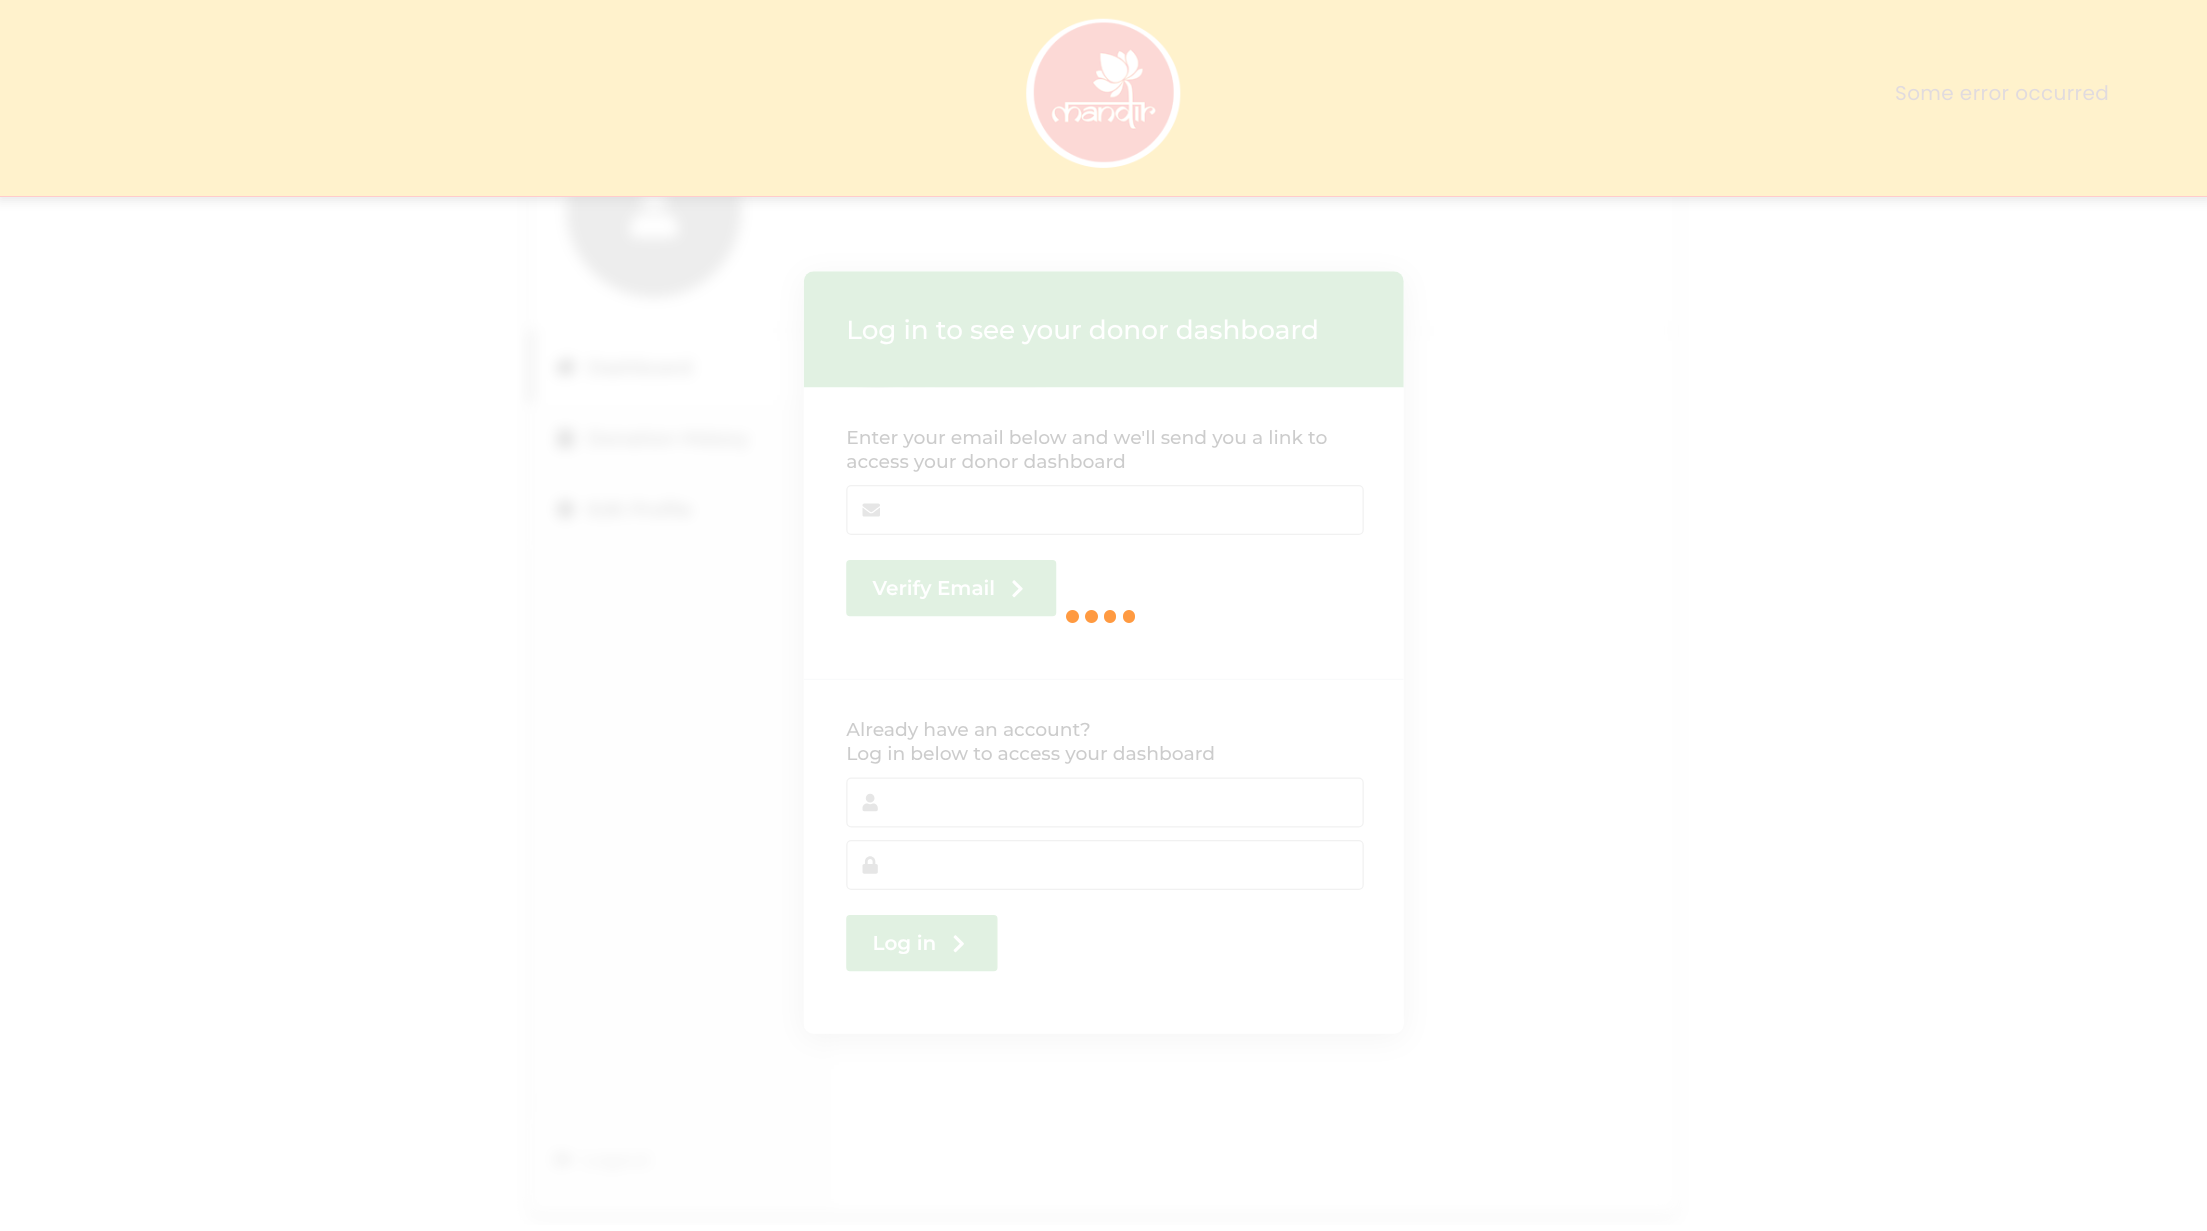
#include <cairo/cairo.h>
#include <math.h>
#include <stddef.h>

static cairo_t *cr;

static void use_color(int r, int g, int b) {
  cairo_set_source_rgb(cr, r / 255.0, g / 255.0, b / 255.0);
}

static void spaced_text(double x, double y, const char *s, double letter, double word) {
  cairo_move_to(cr, x, y);
  while (*s) {
    char ch[5] = {0};
    int n = 0;
    do ch[n++] = *s++; while ((*s & 0xC0) == 0x80);
    cairo_show_text(cr, ch);
    cairo_rel_move_to(cr, letter + word * (*ch == ' '), 0);
  }
}

static void box(double x, double y, double w, double h, int r, int g, int b) {
  use_color(r, g, b);
  cairo_rectangle(cr, x, y, w, h);
  cairo_fill(cr);
}

static void round_rect(double x, double y, double w, double h, double r) {
  cairo_new_sub_path(cr);
  cairo_arc(cr, x + w - r, y + h - r, r, 0, M_PI / 2);
  cairo_arc(cr, x + r, y + h - r, r, M_PI / 2, M_PI);
  cairo_arc(cr, x + r, y + r, r, M_PI, 1.5 * M_PI);
  cairo_arc(cr, x + w - r, y + r, r, 1.5 * M_PI, 2 * M_PI);
  cairo_close_path(cr);
}

static void shadow(double x, double y, double w, double h, double r, double blur, double alpha) {
  cairo_push_group_with_content(cr, CAIRO_CONTENT_ALPHA);
  cairo_set_operator(cr, CAIRO_OPERATOR_SOURCE);
  for (int i = 15; i >= -15 && fmin(w, h) + blur * i / 3 > 0; i -= 2) {
    double e = blur * i / 6;
    cairo_set_source_rgba(cr, 0, 0, 0, alpha * erfc((i - 1) / 8.5) / 2);
    round_rect(x - e, y - e, w + 2 * e, h + 2 * e, fmax(0, fmin(r + e + blur * .6, fmin(w, h) / 2 + e)));
    cairo_fill(cr);
  }
  cairo_pattern_t *soft = cairo_pop_group(cr);
  cairo_mask(cr, soft);
  cairo_pattern_destroy(soft);
}

static void picture(const char *path, double x, double y, double w, double h) {
  cairo_surface_t *image = cairo_image_surface_create_from_png(path);
  cairo_save(cr);
  cairo_set_source_surface(cr, image, x, y);
  cairo_rectangle(cr, x, y, w, h);
  cairo_fill(cr);
  cairo_restore(cr);
  cairo_surface_destroy(image);
}

static void draw(void) {
  use_color(255, 255, 255);
  cairo_paint(cr);
  picture("img_02.png", 517, 197, 1172, 1028);
  use_color(204, 204, 204);
  shadow(0, 3, 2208, 197, 0, 6, 0.5);
  box(0, 0, 2207, 196, 255, 242, 204);
  box(0, 196, 2207, 1, 255, 204, 204);
  picture("img_01.png", 1026, 18, 155, 150);
  use_color(255, 154, 65);
  cairo_arc(cr, 1072.5, 616.5, 6.5, 0, 2 * M_PI);
  cairo_fill(cr);
  cairo_arc(cr, 1091.5, 616.5, 6.5, 0, 2 * M_PI);
  cairo_fill(cr);
  round_rect(1104, 610, 12, 13, 6);
  cairo_fill(cr);
  round_rect(1123, 610, 12, 13, 6);
  cairo_fill(cr);
  cairo_select_font_face(cr, "Poppins", CAIRO_FONT_SLANT_NORMAL, CAIRO_FONT_WEIGHT_NORMAL);
  cairo_set_font_size(cr, 20);
  use_color(225, 219, 222);
  spaced_text(1895, 100, "Some error occurred", 0.4, 0);
}

int main(void) {
  cairo_surface_t *surface = cairo_image_surface_create(CAIRO_FORMAT_RGB24, 2207, 1231);
  cr = cairo_create(surface);
  cairo_font_options_t *options = cairo_font_options_create();
  cairo_font_options_set_hint_metrics(options, CAIRO_HINT_METRICS_OFF);
  cairo_font_options_set_hint_style(options, CAIRO_HINT_STYLE_NONE);
  cairo_set_font_options(cr, options);
  cairo_set_miter_limit(cr, 4);
  draw();
  cairo_surface_write_to_png(surface, "out.png");
  cairo_font_options_destroy(options);
  cairo_destroy(cr);
  cairo_surface_destroy(surface);
  return 0;
}
